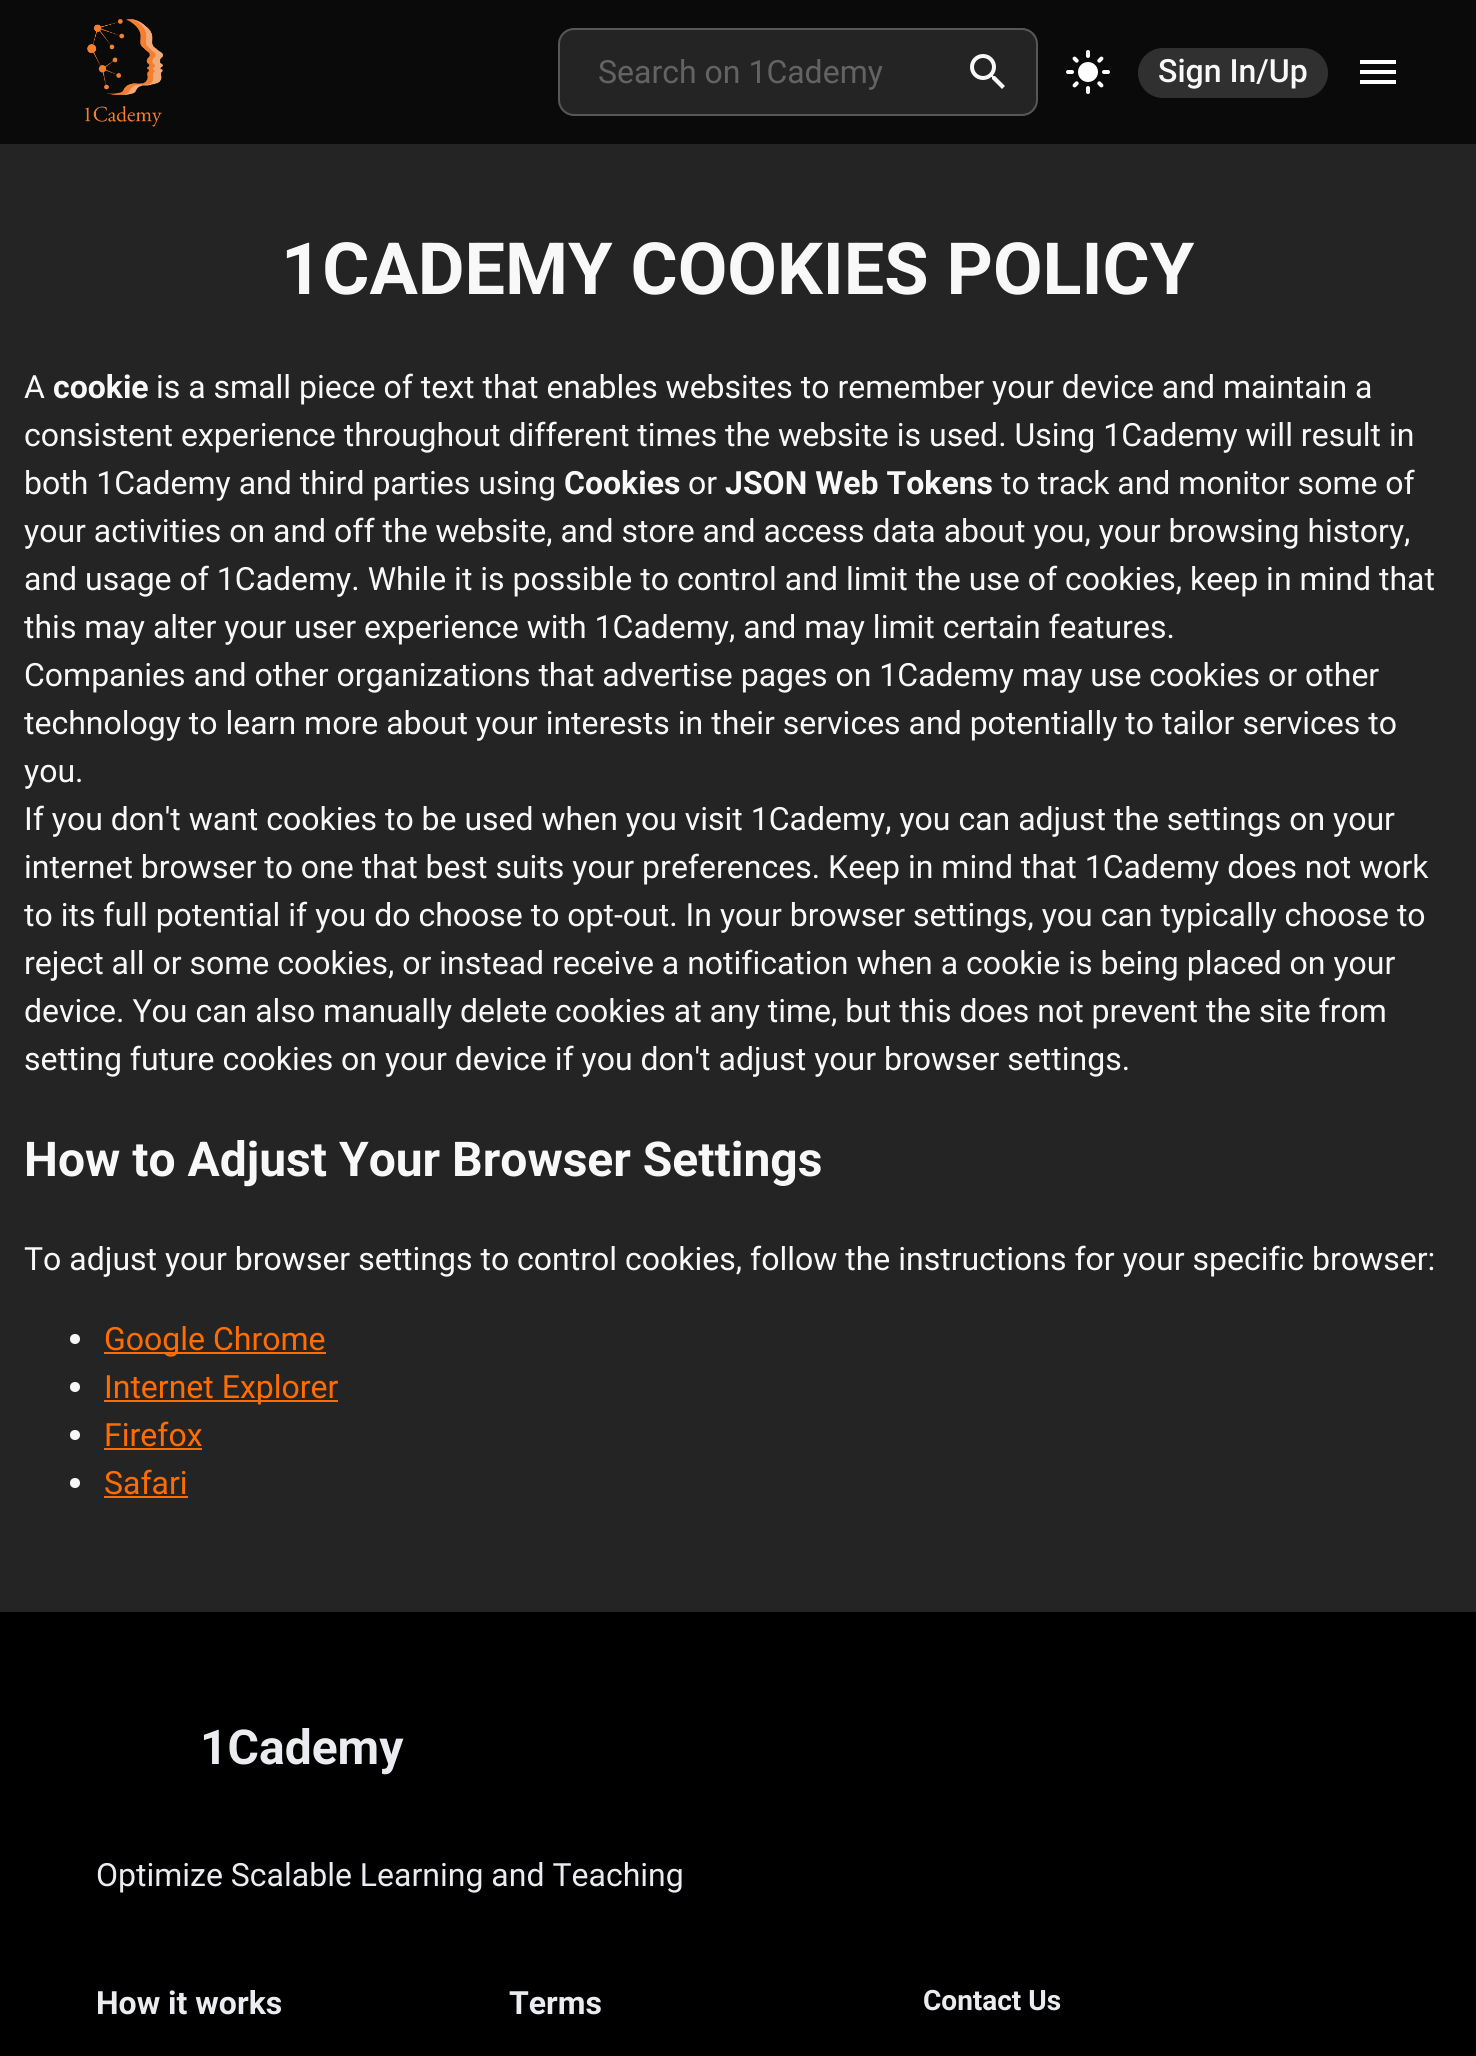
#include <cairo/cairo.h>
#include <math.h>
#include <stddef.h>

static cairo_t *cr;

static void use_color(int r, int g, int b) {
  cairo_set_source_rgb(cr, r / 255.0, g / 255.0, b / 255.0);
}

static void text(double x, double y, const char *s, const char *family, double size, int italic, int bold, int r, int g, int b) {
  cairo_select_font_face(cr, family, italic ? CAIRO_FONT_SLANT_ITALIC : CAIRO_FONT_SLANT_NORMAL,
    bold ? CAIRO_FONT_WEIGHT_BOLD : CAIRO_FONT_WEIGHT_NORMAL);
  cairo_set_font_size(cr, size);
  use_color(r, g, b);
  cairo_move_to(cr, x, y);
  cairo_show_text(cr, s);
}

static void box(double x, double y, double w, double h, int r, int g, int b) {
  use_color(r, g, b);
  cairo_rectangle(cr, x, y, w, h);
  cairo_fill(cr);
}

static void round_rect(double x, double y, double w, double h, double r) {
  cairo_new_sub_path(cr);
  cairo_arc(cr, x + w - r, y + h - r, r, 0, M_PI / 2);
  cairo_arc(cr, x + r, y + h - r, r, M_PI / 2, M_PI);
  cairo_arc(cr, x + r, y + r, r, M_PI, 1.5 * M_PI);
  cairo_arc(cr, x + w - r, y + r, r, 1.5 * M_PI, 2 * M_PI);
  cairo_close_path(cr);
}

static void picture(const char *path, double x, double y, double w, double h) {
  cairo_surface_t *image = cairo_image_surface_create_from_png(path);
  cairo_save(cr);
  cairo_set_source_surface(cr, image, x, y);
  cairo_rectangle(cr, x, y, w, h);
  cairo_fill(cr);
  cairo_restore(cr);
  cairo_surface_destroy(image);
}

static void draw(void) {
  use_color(36, 36, 37);
  cairo_paint(cr);
  box(0, 0, 1476, 144, 10, 10, 10);
  picture("img_01.png", 84, 19, 79, 108);
  use_color(36, 36, 37);
  round_rect(559, 29, 478, 86, 15);
  cairo_fill_preserve(cr);
  use_color(87, 87, 87);
  cairo_stroke(cr);
  picture("img_02.png", 970, 54, 35, 35);
  picture("img_03.png", 1066, 50, 44, 44);
  use_color(48, 48, 48);
  round_rect(1138, 48, 190, 50, 25);
  cairo_fill(cr);
  use_color(255, 255, 255);
  cairo_new_path(cr);
  cairo_move_to(cr, 1360, 84);
  cairo_line_to(cr, 1396, 84);
  cairo_line_to(cr, 1396, 80);
  cairo_line_to(cr, 1360, 80);
  cairo_close_path(cr);
  cairo_move_to(cr, 1360, 74);
  cairo_line_to(cr, 1396, 74);
  cairo_line_to(cr, 1396, 70);
  cairo_line_to(cr, 1360, 70);
  cairo_close_path(cr);
  cairo_move_to(cr, 1360, 60);
  cairo_line_to(cr, 1360, 64);
  cairo_line_to(cr, 1396, 64);
  cairo_line_to(cr, 1396, 60);
  cairo_close_path(cr);
  cairo_fill(cr);
  use_color(248, 248, 248);
  cairo_arc(cr, 75, 1339, 5, 0, 2 * M_PI);
  cairo_fill(cr);
  box(104, 1352, 222, 2, 255, 109, 0);
  use_color(248, 248, 248);
  cairo_arc(cr, 75, 1387, 5, 0, 2 * M_PI);
  cairo_fill(cr);
  box(104, 1400, 234, 2, 255, 109, 0);
  use_color(248, 248, 248);
  cairo_arc(cr, 75, 1435, 5, 0, 2 * M_PI);
  cairo_fill(cr);
  box(104, 1448, 98, 2, 255, 109, 0);
  use_color(248, 248, 248);
  cairo_arc(cr, 75, 1483, 5, 0, 2 * M_PI);
  cairo_fill(cr);
  box(104, 1496, 84, 2, 255, 109, 0);
  box(0, 1612, 1476, 444, 0, 0, 0);
  text(598, 83, "Search on 1Cademy", "Roboto", 32, 0, 0, 99, 99, 99);
  text(1158, 82, "Sign In/Up", "Roboto Medium", 32, 0, 0, 248, 248, 248);
  text(281, 294, "1CADEMY COOKIES POLICY", "Roboto", 72, 0, 1, 248, 248, 248);
  text(24, 398, "A", "Roboto", 32, 0, 0, 248, 248, 248);
  text(53, 398, "cookie", "Roboto", 32, 0, 1, 248, 248, 248);
  text(156, 398, "is a small piece of text that enables websites to remember your device and maintain a", "Roboto", 32, 0, 0, 248, 248, 248);
  text(24, 446, "consistent experience throughout different times the website is used. Using 1Cademy will result in", "Roboto", 32, 0, 0, 248, 248, 248);
  text(24, 494, "both 1Cademy and third parties using", "Roboto", 32, 0, 0, 248, 248, 248);
  text(564, 494, "Cookies", "Roboto", 32, 0, 1, 248, 248, 248);
  text(688, 494, "or", "Roboto", 32, 0, 0, 248, 248, 248);
  text(725, 494, "JSON Web Tokens", "Roboto", 32, 0, 1, 248, 248, 248);
  text(1001, 494, "to track and monitor some of", "Roboto", 32, 0, 0, 248, 248, 248);
  text(24, 542, "your activities on and off the website, and store and access data about you, your browsing history,", "Roboto", 32, 0, 0, 248, 248, 248);
  text(24, 590, "and usage of 1Cademy. While it is possible to control and limit the use of cookies, keep in mind that", "Roboto", 32, 0, 0, 248, 248, 248);
  text(24, 638, "this may alter your user experience with 1Cademy, and may limit certain features.", "Roboto", 32, 0, 0, 248, 248, 248);
  text(24, 686, "Companies and other organizations that advertise pages on 1Cademy may use cookies or other", "Roboto", 32, 0, 0, 248, 248, 248);
  text(24, 734, "technology to learn more about your interests in their services and potentially to tailor services to", "Roboto", 32, 0, 0, 248, 248, 248);
  text(24, 782, "you.", "Roboto", 32, 0, 0, 248, 248, 248);
  text(24, 830, "If you don't want cookies to be used when you visit 1Cademy, you can adjust the settings on your", "Roboto", 32, 0, 0, 248, 248, 248);
  text(24, 878, "internet browser to one that best suits your preferences. Keep in mind that 1Cademy does not work", "Roboto", 32, 0, 0, 248, 248, 248);
  text(24, 926, "to its full potential if you do choose to opt-out. In your browser settings, you can typically choose to", "Roboto", 32, 0, 0, 248, 248, 248);
  text(24, 974, "reject all or some cookies, or instead receive a notification when a cookie is being placed on your", "Roboto", 32, 0, 0, 248, 248, 248);
  text(24, 1022, "device. You can also manually delete cookies at any time, but this does not prevent the site from", "Roboto", 32, 0, 0, 248, 248, 248);
  text(24, 1070, "setting future cookies on your device if you don't adjust your browser settings.", "Roboto", 32, 0, 0, 248, 248, 248);
  text(24, 1176, "How to Adjust Your Browser Settings", "Roboto", 48, 0, 1, 248, 248, 248);
  text(24, 1270, "To adjust your browser settings to control cookies, follow the instructions for your specific browser:", "Roboto", 32, 0, 0, 248, 248, 248);
  text(104, 1350, "Google Chrome", "Roboto", 32, 0, 0, 255, 109, 0);
  text(104, 1398, "Internet Explorer", "Roboto", 32, 0, 0, 255, 109, 0);
  text(104, 1446, "Firefox", "Roboto", 32, 0, 0, 255, 109, 0);
  text(104, 1494, "Safari", "Roboto", 32, 0, 0, 255, 109, 0);
  text(200, 1764, "1Cademy", "Roboto", 48, 0, 1, 234, 236, 240);
  text(96, 1886, "Optimize Scalable Learning and Teaching", "Roboto", 32, 0, 0, 234, 236, 240);
  text(96, 2014, "How it works", "Roboto", 32, 0, 1, 234, 236, 240);
  text(509, 2014, "Terms", "Roboto", 32, 0, 1, 234, 236, 240);
  text(923, 2010, "Contact Us", "Roboto", 28, 0, 1, 234, 236, 240);
}

int main(void) {
  cairo_surface_t *surface = cairo_image_surface_create(CAIRO_FORMAT_RGB24, 1476, 2056);
  cr = cairo_create(surface);
  cairo_font_options_t *options = cairo_font_options_create();
  cairo_font_options_set_hint_metrics(options, CAIRO_HINT_METRICS_OFF);
  cairo_font_options_set_hint_style(options, CAIRO_HINT_STYLE_NONE);
  cairo_set_font_options(cr, options);
  cairo_set_miter_limit(cr, 4);
  draw();
  cairo_surface_write_to_png(surface, "out.png");
  cairo_font_options_destroy(options);
  cairo_destroy(cr);
  cairo_surface_destroy(surface);
  return 0;
}
